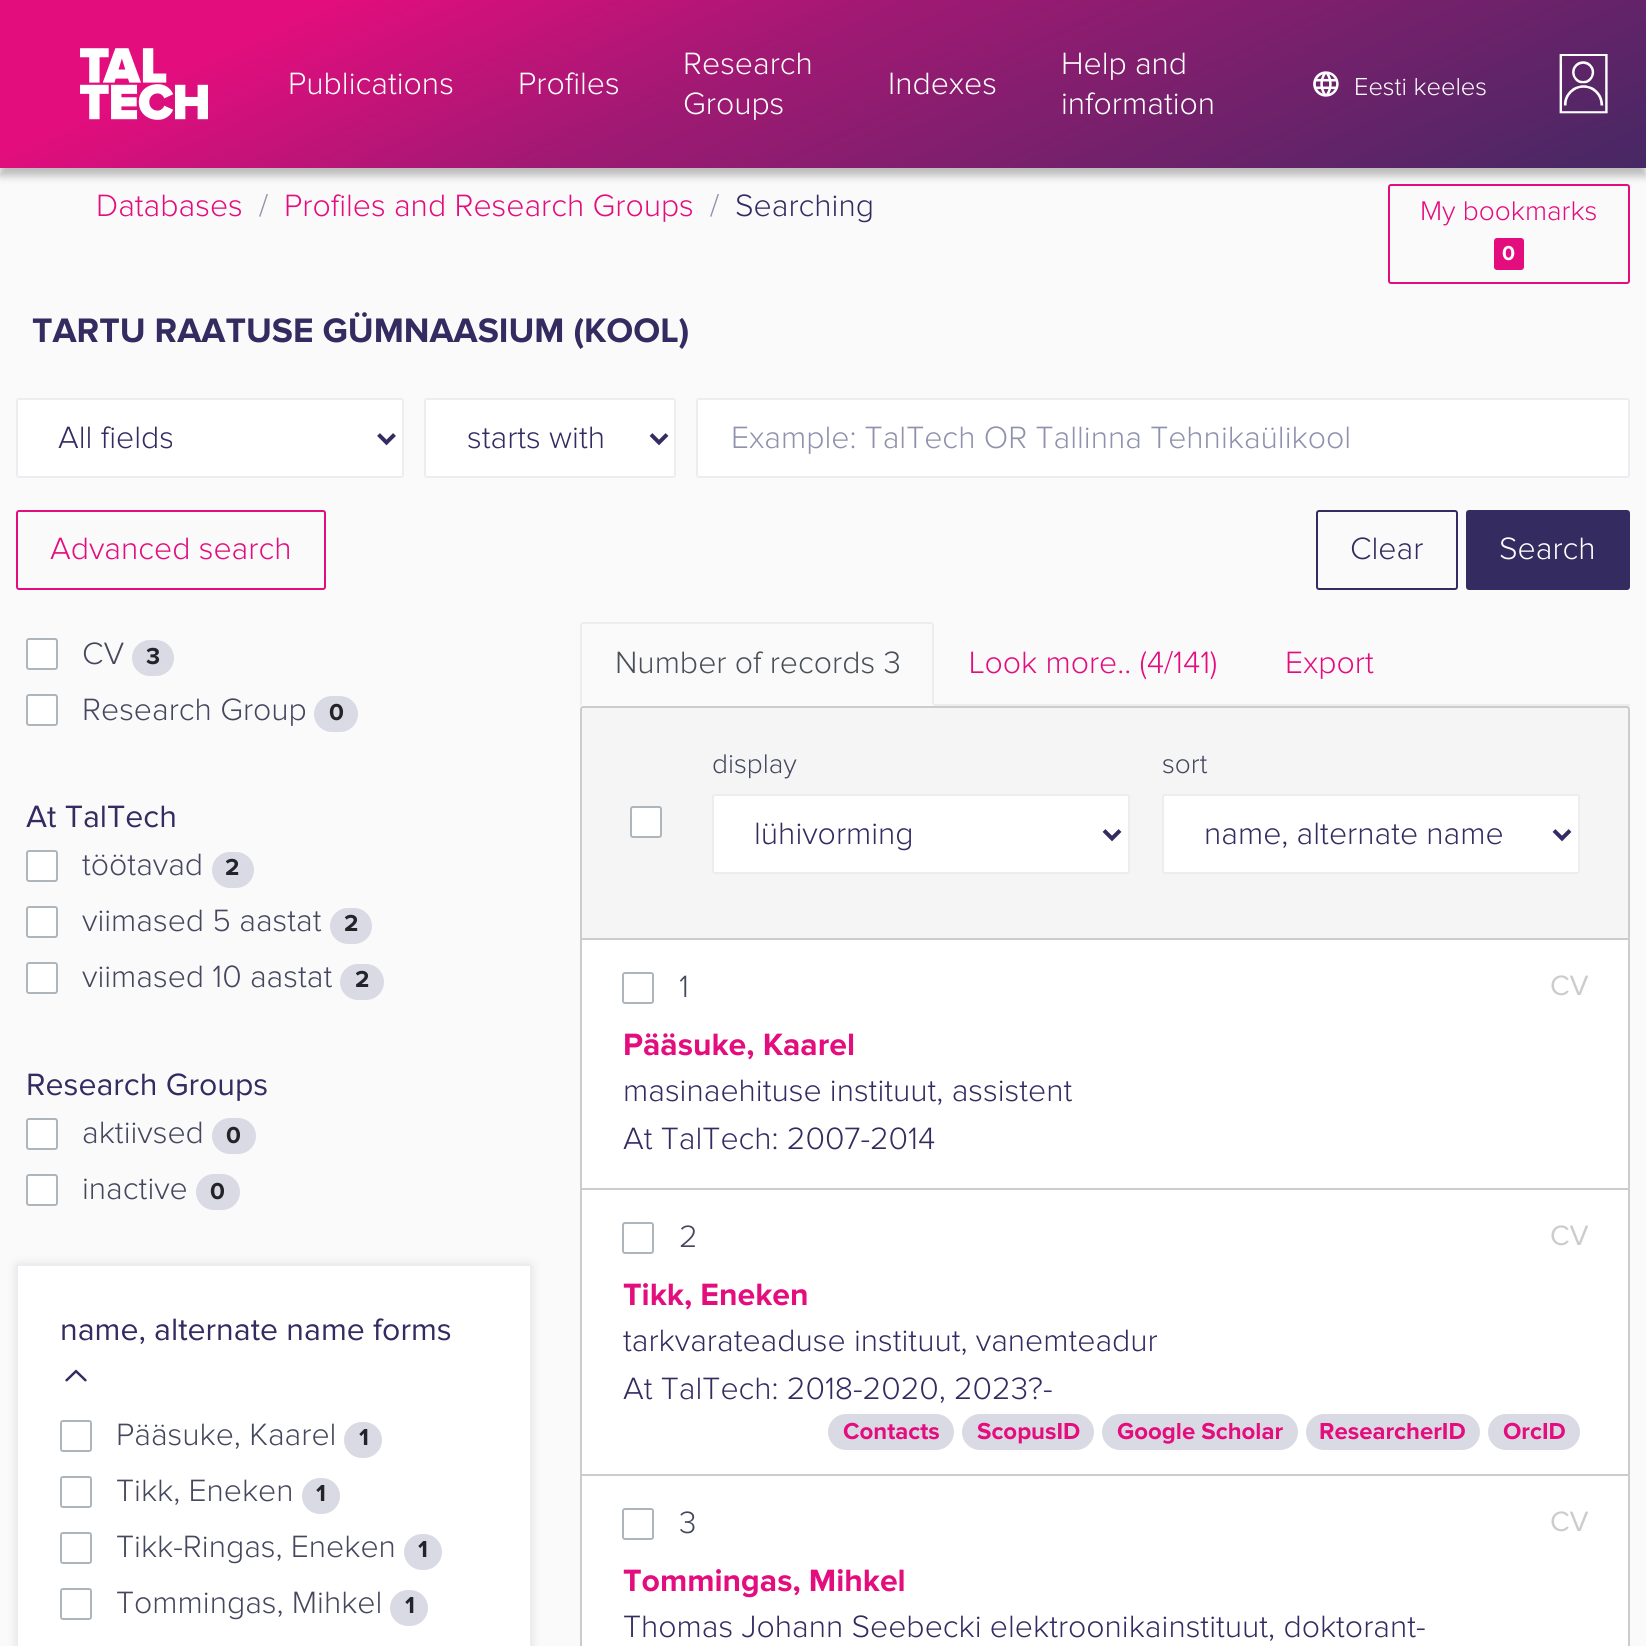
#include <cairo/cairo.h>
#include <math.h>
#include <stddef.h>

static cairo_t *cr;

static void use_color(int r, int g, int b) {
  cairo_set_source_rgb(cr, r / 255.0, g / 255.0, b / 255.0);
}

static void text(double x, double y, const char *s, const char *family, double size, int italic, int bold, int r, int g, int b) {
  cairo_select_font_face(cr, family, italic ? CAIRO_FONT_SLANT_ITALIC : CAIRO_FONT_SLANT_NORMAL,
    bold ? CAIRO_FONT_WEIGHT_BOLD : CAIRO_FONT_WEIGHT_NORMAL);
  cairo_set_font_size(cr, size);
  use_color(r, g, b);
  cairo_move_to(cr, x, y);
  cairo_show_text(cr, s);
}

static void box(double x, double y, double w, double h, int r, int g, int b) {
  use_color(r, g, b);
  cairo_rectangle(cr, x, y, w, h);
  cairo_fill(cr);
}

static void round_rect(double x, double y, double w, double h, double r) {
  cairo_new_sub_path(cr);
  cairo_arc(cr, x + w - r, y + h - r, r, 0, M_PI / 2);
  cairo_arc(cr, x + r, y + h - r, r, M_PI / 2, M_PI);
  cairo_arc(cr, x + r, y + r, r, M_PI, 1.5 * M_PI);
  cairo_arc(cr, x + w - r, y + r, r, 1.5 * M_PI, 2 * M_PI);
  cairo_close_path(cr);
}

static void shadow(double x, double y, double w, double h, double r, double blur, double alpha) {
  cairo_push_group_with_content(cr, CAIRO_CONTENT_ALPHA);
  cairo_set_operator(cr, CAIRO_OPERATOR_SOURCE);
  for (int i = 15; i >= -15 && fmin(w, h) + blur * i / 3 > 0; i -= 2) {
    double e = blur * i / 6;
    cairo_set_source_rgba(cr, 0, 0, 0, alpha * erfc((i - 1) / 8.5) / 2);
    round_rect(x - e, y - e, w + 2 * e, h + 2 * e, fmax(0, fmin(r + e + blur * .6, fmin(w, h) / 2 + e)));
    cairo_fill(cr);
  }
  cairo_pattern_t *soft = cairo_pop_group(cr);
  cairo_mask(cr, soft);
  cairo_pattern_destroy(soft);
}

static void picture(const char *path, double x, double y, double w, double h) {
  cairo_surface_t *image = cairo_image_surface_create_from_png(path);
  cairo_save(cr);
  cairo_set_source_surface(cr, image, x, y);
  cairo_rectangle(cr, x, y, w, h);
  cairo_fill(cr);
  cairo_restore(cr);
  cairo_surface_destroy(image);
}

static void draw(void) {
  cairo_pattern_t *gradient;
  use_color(251, 250, 251);
  cairo_paint(cr);
  use_color(0, 0, 0);
  shadow(0, 8, 1646, 168, 0, 4, 0.25);
  gradient = cairo_pattern_create_linear(644, -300, 1049, 568);
  cairo_pattern_add_color_stop_rgba(gradient, 0.14, 0.894, 0.051, 0.494, 1);
  cairo_pattern_add_color_stop_rgba(gradient, 0.39, 0.631, 0.098, 0.451, 1);
  cairo_pattern_add_color_stop_rgba(gradient, 0.84, 0.306, 0.153, 0.396, 1);
  cairo_pattern_add_color_stop_rgba(gradient, 1, 0.204, 0.173, 0.38, 1);
  cairo_set_source(cr, gradient);
  cairo_pattern_destroy(gradient);
  cairo_rectangle(cr, 0, 0, 1646, 168);
  cairo_fill(cr);
  picture("img_01.png", 80, 48, 128, 72);
  picture("img_02.png", 1313, 71, 26, 26);
  picture("img_03.png", 1559, 54, 49, 60);
  round_rect(1389, 185, 240, 98, 2);
  use_color(228, 13, 126);
  cairo_stroke(cr);
  round_rect(1494, 238, 30, 32, 3);
  cairo_fill(cr);
  use_color(255, 255, 255);
  round_rect(17, 399, 386, 78, 2);
  cairo_fill_preserve(cr);
  use_color(236, 236, 241);
  cairo_stroke(cr);
  cairo_new_path(cr);
  cairo_move_to(cr, 378.5, 434.5);
  cairo_line_to(cr, 386.5, 442.5);
  cairo_line_to(cr, 394.5, 434.5);
  use_color(52, 44, 97);
  cairo_set_line_width(cr, 4);
  cairo_stroke(cr);
  use_color(255, 255, 255);
  round_rect(425, 399, 250, 78, 2);
  cairo_fill_preserve(cr);
  use_color(236, 236, 241);
  cairo_set_line_width(cr, 2);
  cairo_stroke(cr);
  cairo_new_path(cr);
  cairo_move_to(cr, 651, 434.5);
  cairo_line_to(cr, 659, 442.5);
  cairo_line_to(cr, 667, 434.5);
  use_color(52, 44, 97);
  cairo_set_line_width(cr, 4);
  cairo_stroke(cr);
  use_color(255, 255, 255);
  round_rect(697, 399, 932, 78, 2);
  cairo_fill_preserve(cr);
  use_color(236, 236, 241);
  cairo_set_line_width(cr, 2);
  cairo_stroke(cr);
  round_rect(17, 511, 308, 78, 2);
  use_color(228, 13, 126);
  cairo_stroke(cr);
  round_rect(1317, 511, 140, 78, 2);
  use_color(52, 44, 97);
  cairo_stroke(cr);
  round_rect(1467, 511, 162, 78, 2);
  cairo_fill_preserve(cr);
  cairo_stroke(cr);
  use_color(255, 255, 255);
  round_rect(27, 639, 30, 30, 2);
  cairo_fill_preserve(cr);
  use_color(173, 181, 189);
  cairo_stroke(cr);
  use_color(218, 218, 228);
  round_rect(132, 640, 42, 36, 18);
  cairo_fill(cr);
  use_color(255, 255, 255);
  round_rect(27, 695, 30, 30, 2);
  cairo_fill_preserve(cr);
  use_color(173, 181, 189);
  cairo_stroke(cr);
  use_color(218, 218, 228);
  round_rect(314, 696, 44, 36, 18);
  cairo_fill(cr);
  use_color(255, 255, 255);
  round_rect(27, 851, 30, 30, 2);
  cairo_fill_preserve(cr);
  use_color(173, 181, 189);
  cairo_stroke(cr);
  use_color(218, 218, 228);
  round_rect(212, 852, 42, 36, 18);
  cairo_fill(cr);
  use_color(255, 255, 255);
  round_rect(27, 907, 30, 30, 2);
  cairo_fill_preserve(cr);
  use_color(173, 181, 189);
  cairo_stroke(cr);
  use_color(218, 218, 228);
  round_rect(330, 908, 42, 36, 18);
  cairo_fill(cr);
  use_color(255, 255, 255);
  round_rect(27, 963, 30, 30, 2);
  cairo_fill_preserve(cr);
  use_color(173, 181, 189);
  cairo_stroke(cr);
  use_color(218, 218, 228);
  round_rect(340, 964, 44, 36, 18);
  cairo_fill(cr);
  use_color(255, 255, 255);
  round_rect(27, 1119, 30, 30, 2);
  cairo_fill_preserve(cr);
  use_color(173, 181, 189);
  cairo_stroke(cr);
  use_color(218, 218, 228);
  round_rect(212, 1118, 44, 36, 18);
  cairo_fill(cr);
  use_color(255, 255, 255);
  round_rect(27, 1175, 30, 30, 2);
  cairo_fill_preserve(cr);
  use_color(173, 181, 189);
  cairo_stroke(cr);
  use_color(218, 218, 228);
  round_rect(196, 1174, 44, 36, 18);
  cairo_fill(cr);
  use_color(0, 0, 0);
  shadow(16, 1264, 516, 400, 3, 5, 0.1);
  use_color(255, 255, 255);
  round_rect(17, 1265, 514, 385, 2);
  cairo_fill_preserve(cr);
  use_color(236, 236, 241);
  cairo_stroke(cr);
  picture("img_04.png", 65, 1369, 22, 13);
  round_rect(61, 1421, 30, 30, 2);
  use_color(173, 181, 189);
  cairo_stroke(cr);
  use_color(218, 218, 228);
  round_rect(344, 1422, 38, 36, 18);
  cairo_fill(cr);
  round_rect(61, 1477, 30, 30, 2);
  use_color(173, 181, 189);
  cairo_stroke(cr);
  use_color(218, 218, 228);
  round_rect(302, 1478, 38, 36, 18);
  cairo_fill(cr);
  round_rect(61, 1533, 30, 30, 2);
  use_color(173, 181, 189);
  cairo_stroke(cr);
  use_color(218, 218, 228);
  round_rect(404, 1534, 38, 36, 18);
  cairo_fill(cr);
  round_rect(61, 1589, 30, 30, 2);
  use_color(173, 181, 189);
  cairo_stroke(cr);
  use_color(218, 218, 228);
  round_rect(390, 1590, 38, 36, 18);
  cairo_fill(cr);
  box(934, 704, 696, 2, 236, 236, 241);
  cairo_new_path(cr);
  cairo_move_to(cr, 583, 622);
  cairo_line_to(cr, 581, 623);
  cairo_line_to(cr, 582, 624);
  cairo_line_to(cr, 583, 624);
  cairo_line_to(cr, 931, 624);
  cairo_line_to(cr, 932, 624);
  cairo_line_to(cr, 933, 623);
  cairo_line_to(cr, 931, 622);
  cairo_close_path(cr);
  cairo_fill(cr);
  cairo_new_path(cr);
  cairo_move_to(cr, 934, 706);
  cairo_line_to(cr, 934, 625);
  cairo_line_to(cr, 933, 623);
  cairo_line_to(cr, 932, 624);
  cairo_line_to(cr, 932, 625);
  cairo_line_to(cr, 932, 704);
  cairo_close_path(cr);
  cairo_fill(cr);
  use_color(251, 250, 251);
  cairo_new_path(cr);
  cairo_move_to(cr, 934, 706);
  cairo_line_to(cr, 932, 704);
  cairo_line_to(cr, 582, 704);
  cairo_line_to(cr, 580, 706);
  cairo_close_path(cr);
  cairo_fill(cr);
  use_color(236, 236, 241);
  cairo_new_path(cr);
  cairo_move_to(cr, 580, 706);
  cairo_line_to(cr, 582, 704);
  cairo_line_to(cr, 582, 625);
  cairo_line_to(cr, 582, 624);
  cairo_line_to(cr, 581, 623);
  cairo_line_to(cr, 580, 625);
  cairo_close_path(cr);
  cairo_fill(cr);
  use_color(245, 245, 245);
  cairo_new_path(cr);
  cairo_move_to(cr, 583, 707);
  cairo_line_to(cr, 1627, 707);
  cairo_curve_to(cr, 1628, 707, 1629, 708, 1629, 709);
  cairo_line_to(cr, 1629, 939);
  cairo_line_to(cr, 581, 939);
  cairo_line_to(cr, 581, 709);
  cairo_curve_to(cr, 581, 708, 582, 707, 583, 707);
  cairo_close_path(cr);
  cairo_fill_preserve(cr);
  use_color(204, 204, 204);
  cairo_stroke(cr);
  use_color(255, 255, 255);
  round_rect(631, 807, 30, 30, 2);
  cairo_fill_preserve(cr);
  use_color(173, 181, 189);
  cairo_stroke(cr);
  use_color(255, 255, 255);
  round_rect(713, 795, 416, 78, 2);
  cairo_fill_preserve(cr);
  use_color(236, 236, 241);
  cairo_stroke(cr);
  cairo_new_path(cr);
  cairo_move_to(cr, 1104, 830.5);
  cairo_line_to(cr, 1112, 838.5);
  cairo_line_to(cr, 1120, 830.5);
  use_color(52, 44, 97);
  cairo_set_line_width(cr, 4);
  cairo_stroke(cr);
  use_color(255, 255, 255);
  round_rect(1163, 795, 416, 78, 2);
  cairo_fill_preserve(cr);
  use_color(236, 236, 241);
  cairo_set_line_width(cr, 2);
  cairo_stroke(cr);
  cairo_new_path(cr);
  cairo_move_to(cr, 1554, 830.5);
  cairo_line_to(cr, 1562, 838.5);
  cairo_line_to(cr, 1570, 830.5);
  use_color(52, 44, 97);
  cairo_set_line_width(cr, 4);
  cairo_stroke(cr);
  box(582, 940, 1046, 248, 255, 255, 255);
  box(1628, 940, 2, 706, 204, 204, 204);
  box(580, 1188, 1050, 2, 204, 204, 204);
  box(580, 940, 2, 250, 204, 204, 204);
  round_rect(623, 973, 30, 30, 2);
  use_color(173, 181, 189);
  cairo_set_line_width(cr, 2);
  cairo_stroke(cr);
  box(582, 1190, 1046, 284, 255, 255, 255);
  box(580, 1474, 1050, 2, 204, 204, 204);
  box(580, 1190, 2, 456, 204, 204, 204);
  round_rect(623, 1223, 30, 30, 2);
  use_color(173, 181, 189);
  cairo_stroke(cr);
  use_color(218, 218, 228);
  round_rect(828, 1414, 126, 36, 18);
  cairo_fill(cr);
  round_rect(962, 1414, 132, 36, 18);
  cairo_fill(cr);
  round_rect(1102, 1414, 196, 36, 18);
  cairo_fill(cr);
  round_rect(1306, 1414, 174, 36, 18);
  cairo_fill(cr);
  round_rect(1488, 1414, 92, 36, 18);
  cairo_fill(cr);
  box(582, 1476, 1046, 170, 255, 255, 255);
  round_rect(623, 1509, 30, 30, 2);
  use_color(173, 181, 189);
  cairo_stroke(cr);
  text(288, 94, "Publications", "Proxima Nova Light", 32, 0, 0, 255, 255, 255);
  text(518, 94, "Profiles", "Proxima Nova Light", 32, 0, 0, 255, 255, 255);
  text(683, 74, "Research", "Proxima Nova Light", 32, 0, 0, 255, 255, 255);
  text(683, 114, "Groups", "Proxima Nova Light", 32, 0, 0, 255, 255, 255);
  text(888, 94, "Indexes", "Proxima Nova Light", 32, 0, 0, 255, 255, 255);
  text(1061, 74, "Help and", "Proxima Nova Light", 32, 0, 0, 255, 255, 255);
  text(1061, 114, "information", "Proxima Nova Light", 32, 0, 0, 255, 255, 255);
  text(1354, 95, "Eesti keeles", "Proxima Nova Light", 25.5, 0, 0, 255, 255, 255);
  text(96, 216, "Databases", "Proxima Nova Light", 32, 0, 0, 228, 13, 126);
  text(259, 216, "/", "Proxima Nova Light", 32, 0, 0, 144, 146, 173);
  text(284, 216, "Profiles and Research Groups", "Proxima Nova Light", 32, 0, 0, 228, 13, 126);
  text(710, 216, "/", "Proxima Nova Light", 32, 0, 0, 144, 146, 173);
  text(735, 216, "Searching", "Proxima Nova Light", 32, 0, 0, 52, 44, 97);
  text(1420, 220, "My bookmarks", "Proxima Nova Light", 28, 0, 0, 228, 13, 126);
  text(1502, 260, "0", "Proxima Nova", 21, 0, 1, 255, 255, 255);
  text(32, 342, "TARTU RAATUSE GÜMNAASIUM (KOOL)", "Proxima Nova", 35.25, 0, 1, 52, 44, 97);
  text(58, 448, "All fields", "Proxima Nova Light", 32, 0, 0, 52, 44, 97);
  text(467, 448, "starts with", "Proxima Nova Light", 32, 0, 0, 52, 44, 97);
  text(731, 448, "Example: TalTech OR Tallinna Tehnikaülikool", "Proxima Nova Light", 32, 0, 0, 144, 146, 173);
  text(50, 559, "Advanced search", "Proxima Nova Light", 32, 0, 0, 228, 13, 126);
  text(1350, 559, "Clear", "Proxima Nova Light", 32, 0, 0, 52, 44, 97);
  text(1499, 559, "Search", "Proxima Nova Light", 32, 0, 0, 255, 255, 255);
  text(82, 664, "CV", "Proxima Nova Light", 32, 0, 0, 69, 71, 94);
  text(146, 664, "3", "Proxima Nova", 24, 0, 1, 33, 37, 41);
  text(82, 720, "Research Group", "Proxima Nova Light", 32, 0, 0, 69, 71, 94);
  text(329, 720, "0", "Proxima Nova", 24, 0, 1, 33, 37, 41);
  text(26, 827, "At TalTech", "Proxima Nova", 32, 0, 0, 52, 44, 97);
  text(82, 875, "töötavad", "Proxima Nova Light", 32, 0, 0, 69, 71, 94);
  text(225, 875, "2", "Proxima Nova", 24, 0, 1, 33, 37, 41);
  text(82, 931, "viimased 5 aastat", "Proxima Nova Light", 32, 0, 0, 69, 71, 94);
  text(344, 931, "2", "Proxima Nova", 24, 0, 1, 33, 37, 41);
  text(82, 987, "viimased 10 aastat", "Proxima Nova Light", 32, 0, 0, 69, 71, 94);
  text(355, 987, "2", "Proxima Nova", 24, 0, 1, 33, 37, 41);
  text(26, 1095, "Research Groups", "Proxima Nova", 32, 0, 0, 52, 44, 97);
  text(82, 1143, "aktiivsed", "Proxima Nova Light", 32, 0, 0, 69, 71, 94);
  text(226, 1143, "0", "Proxima Nova", 24, 0, 1, 33, 37, 41);
  text(82, 1199, "inactive", "Proxima Nova Light", 32, 0, 0, 69, 71, 94);
  text(210, 1199, "0", "Proxima Nova", 24, 0, 1, 33, 37, 41);
  text(60, 1340, "name, alternate name forms", "Proxima Nova", 32, 0, 0, 52, 44, 97);
  text(116, 1445, "Pääsuke, Kaarel", "Proxima Nova Light", 32, 0, 0, 69, 71, 94);
  text(359, 1445, "1", "Proxima Nova", 24, 0, 1, 33, 37, 41);
  text(116, 1501, "Tikk, Eneken", "Proxima Nova Light", 32, 0, 0, 69, 71, 94);
  text(316, 1501, "1", "Proxima Nova", 24, 0, 1, 33, 37, 41);
  text(116, 1557, "Tikk-Ringas, Eneken", "Proxima Nova Light", 32, 0, 0, 69, 71, 94);
  text(418, 1557, "1", "Proxima Nova", 24, 0, 1, 33, 37, 41);
  text(116, 1613, "Tommingas, Mihkel", "Proxima Nova Light", 32, 0, 0, 69, 71, 94);
  text(405, 1613, "1", "Proxima Nova", 24, 0, 1, 33, 37, 41);
  text(615, 673, "Number of records 3", "Proxima Nova Light", 32, 0, 0, 73, 80, 87);
  text(969, 673, "Look more.. (4/141)", "Proxima Nova Light", 32, 0, 0, 228, 13, 126);
  text(1285, 673, "Export", "Proxima Nova Light", 32, 0, 0, 228, 13, 126);
  text(712, 773, "display", "Proxima Nova Light", 28, 0, 0, 69, 71, 94);
  text(754, 844, "lühivorming", "Proxima Nova Light", 32, 0, 0, 52, 44, 97);
  text(1162, 773, "sort", "Proxima Nova Light", 28, 0, 0, 69, 71, 94);
  text(1204, 844, "name, alternate name", "Proxima Nova Light", 32, 0, 0, 52, 44, 97);
  text(679, 997, "1", "Proxima Nova Light", 32, 0, 0, 69, 71, 94);
  text(1550, 995, "CV", "Proxima Nova", 29, 0, 0, 204, 204, 204);
  text(623, 1055, "Pääsuke, Kaarel", "Proxima Nova", 32, 0, 1, 228, 13, 126);
  text(623, 1101, "masinaehituse instituut, assistent", "Proxima Nova Light", 32, 0, 0, 52, 44, 97);
  text(623, 1149, "At TalTech: 2007-2014", "Proxima Nova Light", 32, 0, 0, 52, 44, 97);
  text(679, 1247, "2", "Proxima Nova Light", 32, 0, 0, 69, 71, 94);
  text(1550, 1245, "CV", "Proxima Nova", 29, 0, 0, 204, 204, 204);
  text(623, 1305, "Tikk, Eneken", "Proxima Nova", 32, 0, 1, 228, 13, 126);
  text(623, 1351, "tarkvarateaduse instituut, vanemteadur", "Proxima Nova Light", 32, 0, 0, 52, 44, 97);
  text(623, 1399, "At TalTech: 2018-2020, 2023?-", "Proxima Nova Light", 32, 0, 0, 52, 44, 97);
  text(843, 1439, "Contacts", "Proxima Nova", 24, 0, 1, 228, 13, 126);
  text(977, 1439, "ScopusID", "Proxima Nova", 24, 0, 1, 228, 13, 126);
  text(1117, 1439, "Google Scholar", "Proxima Nova", 24, 0, 1, 228, 13, 126);
  text(1319, 1439, "ResearcherID", "Proxima Nova", 24, 0, 1, 228, 13, 126);
  text(1503, 1439, "OrcID", "Proxima Nova", 24, 0, 1, 228, 13, 126);
  text(679, 1533, "3", "Proxima Nova Light", 32, 0, 0, 69, 71, 94);
  text(1550, 1531, "CV", "Proxima Nova", 29, 0, 0, 204, 204, 204);
  text(623, 1591, "Tommingas, Mihkel", "Proxima Nova", 32, 0, 1, 228, 13, 126);
  text(623, 1637, "Thomas Johann Seebecki elektroonikainstituut, doktorant-", "Proxima Nova Light", 32, 0, 0, 52, 44, 97);
}

int main(void) {
  cairo_surface_t *surface = cairo_image_surface_create(CAIRO_FORMAT_RGB24, 1646, 1646);
  cr = cairo_create(surface);
  cairo_font_options_t *options = cairo_font_options_create();
  cairo_font_options_set_hint_metrics(options, CAIRO_HINT_METRICS_OFF);
  cairo_font_options_set_hint_style(options, CAIRO_HINT_STYLE_NONE);
  cairo_set_font_options(cr, options);
  cairo_set_miter_limit(cr, 4);
  draw();
  cairo_surface_write_to_png(surface, "out.png");
  cairo_font_options_destroy(options);
  cairo_destroy(cr);
  cairo_surface_destroy(surface);
  return 0;
}
